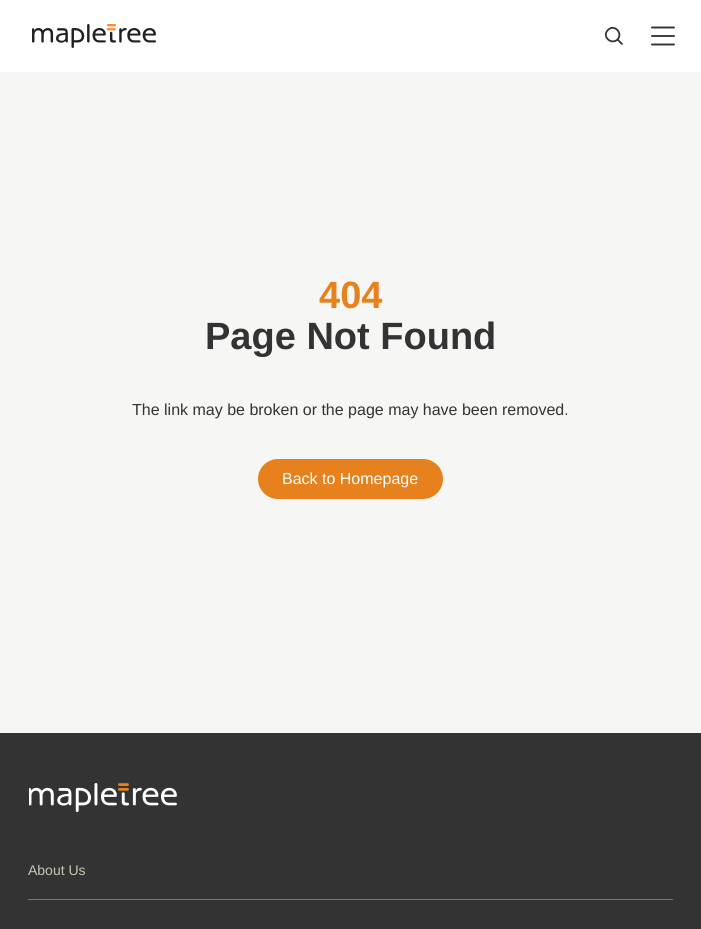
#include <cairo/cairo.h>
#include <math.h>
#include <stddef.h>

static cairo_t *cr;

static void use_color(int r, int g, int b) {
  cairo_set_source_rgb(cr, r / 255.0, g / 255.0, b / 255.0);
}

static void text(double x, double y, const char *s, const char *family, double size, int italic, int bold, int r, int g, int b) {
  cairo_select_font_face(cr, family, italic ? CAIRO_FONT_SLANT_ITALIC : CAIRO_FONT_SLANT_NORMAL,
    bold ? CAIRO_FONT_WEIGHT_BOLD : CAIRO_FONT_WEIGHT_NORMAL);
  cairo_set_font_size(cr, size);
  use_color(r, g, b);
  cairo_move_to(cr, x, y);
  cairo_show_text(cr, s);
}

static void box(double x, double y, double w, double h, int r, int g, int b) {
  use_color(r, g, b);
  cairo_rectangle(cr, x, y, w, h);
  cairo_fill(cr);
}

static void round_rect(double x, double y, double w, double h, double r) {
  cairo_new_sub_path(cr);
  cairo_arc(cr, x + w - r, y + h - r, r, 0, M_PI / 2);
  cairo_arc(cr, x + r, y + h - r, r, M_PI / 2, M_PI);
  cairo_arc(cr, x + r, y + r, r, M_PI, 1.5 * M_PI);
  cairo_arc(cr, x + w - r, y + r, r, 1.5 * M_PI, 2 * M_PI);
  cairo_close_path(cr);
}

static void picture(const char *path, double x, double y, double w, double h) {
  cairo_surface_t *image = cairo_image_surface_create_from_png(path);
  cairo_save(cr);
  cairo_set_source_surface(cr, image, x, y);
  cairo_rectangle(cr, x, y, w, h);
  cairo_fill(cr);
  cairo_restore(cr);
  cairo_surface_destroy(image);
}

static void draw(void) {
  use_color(255, 255, 255);
  cairo_paint(cr);
  picture("img_01.png", 32, 24, 124, 24);
  cairo_new_path(cr);
  cairo_move_to(cr, 622, 44);
  cairo_line_to(cr, 617.5, 39.5);
  cairo_move_to(cr, 617.5, 39.5);
  cairo_curve_to(cr, 623.5, 33, 614, 23.5, 608, 30);
  cairo_curve_to(cr, 601.5, 36, 611, 45.5, 617.5, 39.5);
  cairo_close_path(cr);
  use_color(51, 51, 51);
  cairo_set_line_width(cr, 1.8);
  cairo_set_line_cap(cr, CAIRO_LINE_CAP_ROUND);
  cairo_set_line_join(cr, CAIRO_LINE_JOIN_ROUND);
  cairo_stroke(cr);
  cairo_new_path(cr);
  cairo_move_to(cr, 652, 44.5);
  cairo_line_to(cr, 674, 44.5);
  cairo_move_to(cr, 652, 36);
  cairo_line_to(cr, 674, 36);
  cairo_move_to(cr, 652, 27.5);
  cairo_line_to(cr, 674, 27.5);
  cairo_set_line_width(cr, 1.9);
  cairo_stroke(cr);
  box(0, 72, 701, 661, 246, 246, 244);
  use_color(231, 129, 29);
  round_rect(258, 459, 185, 40, 20);
  cairo_fill(cr);
  box(0, 733, 701, 196, 51, 51, 51);
  picture("img_02.png", 29, 783, 148, 29);
  box(28, 899, 645, 1, 116, 121, 121);
  text(319, 308, "404", "Liberation Sans", 38, 0, 1, 231, 129, 29);
  text(205, 349, "Page Not Found", "Liberation Sans", 38, 0, 1, 51, 51, 51);
  text(132, 415, "The link may be broken or the page may have been removed.", "Liberation Sans", 16, 0, 0, 51, 51, 51);
  text(282, 484, "Back to Homepage", "Liberation Sans", 16, 0, 0, 255, 255, 255);
  text(28, 875, "About Us", "Liberation Sans", 14, 0, 0, 197, 199, 175);
}

int main(void) {
  cairo_surface_t *surface = cairo_image_surface_create(CAIRO_FORMAT_RGB24, 701, 929);
  cr = cairo_create(surface);
  cairo_font_options_t *options = cairo_font_options_create();
  cairo_font_options_set_hint_metrics(options, CAIRO_HINT_METRICS_OFF);
  cairo_font_options_set_hint_style(options, CAIRO_HINT_STYLE_NONE);
  cairo_set_font_options(cr, options);
  cairo_set_miter_limit(cr, 4);
  draw();
  cairo_surface_write_to_png(surface, "out.png");
  cairo_font_options_destroy(options);
  cairo_destroy(cr);
  cairo_surface_destroy(surface);
  return 0;
}
